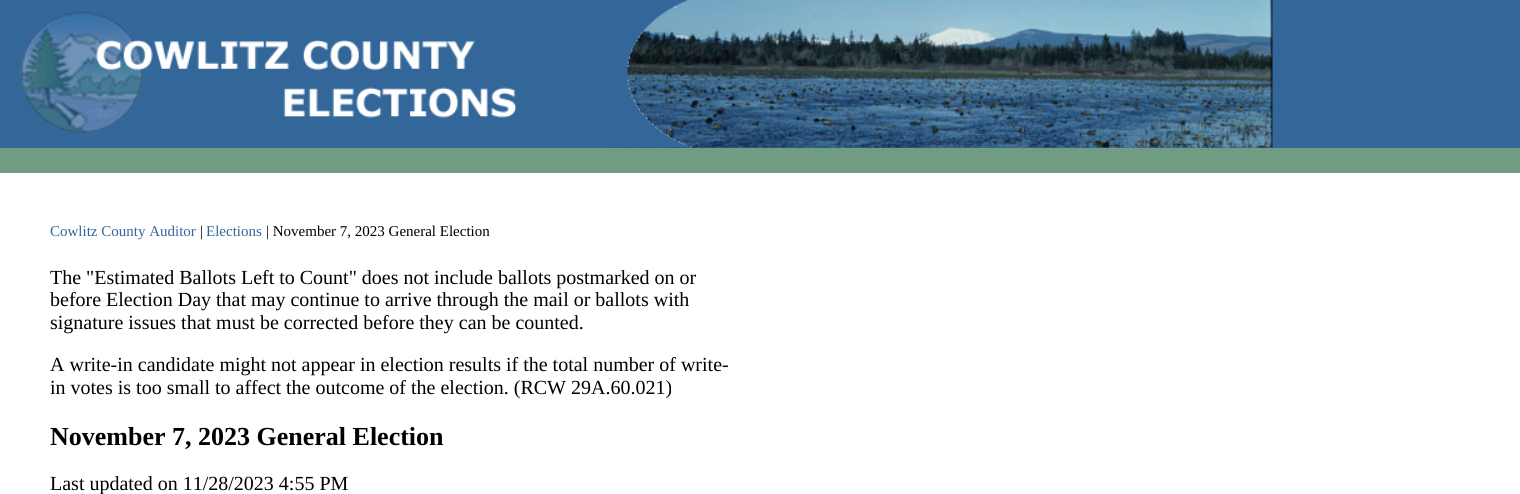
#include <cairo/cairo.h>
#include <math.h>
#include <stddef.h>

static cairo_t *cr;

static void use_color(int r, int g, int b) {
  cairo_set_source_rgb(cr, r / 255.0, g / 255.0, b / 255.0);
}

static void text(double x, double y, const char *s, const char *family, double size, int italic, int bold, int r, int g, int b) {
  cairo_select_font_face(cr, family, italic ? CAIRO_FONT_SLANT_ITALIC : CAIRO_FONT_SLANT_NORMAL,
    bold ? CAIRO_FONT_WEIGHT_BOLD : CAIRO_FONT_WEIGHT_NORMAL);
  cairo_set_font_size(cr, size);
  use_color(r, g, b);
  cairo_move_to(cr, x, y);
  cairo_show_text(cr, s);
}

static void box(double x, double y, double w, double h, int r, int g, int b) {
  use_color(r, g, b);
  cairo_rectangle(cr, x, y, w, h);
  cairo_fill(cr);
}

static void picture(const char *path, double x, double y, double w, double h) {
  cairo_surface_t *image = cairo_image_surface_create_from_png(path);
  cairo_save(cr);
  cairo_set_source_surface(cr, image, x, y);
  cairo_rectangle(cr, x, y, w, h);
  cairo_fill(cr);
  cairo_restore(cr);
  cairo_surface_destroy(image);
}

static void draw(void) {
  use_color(255, 255, 255);
  cairo_paint(cr);
  box(0, 0, 1520, 148, 51, 102, 153);
  picture("img_01.png", 20, 10, 497, 125);
  picture("img_02.png", 610, 0, 663, 148);
  picture("img_03.png", 610, 0, 82, 148);
  box(0, 148, 1520, 25, 112, 156, 132);
  text(50, 236, "Cowlitz County Auditor", "Liberation Serif", 15, 0, 0, 51, 102, 153);
  text(200, 236, "|", "Liberation Serif", 15, 0, 0, 0, 0, 0);
  text(206, 236, "Elections", "Liberation Serif", 15, 0, 0, 51, 102, 153);
  text(266, 236, "| November 7, 2023 General Election", "Liberation Serif", 15, 0, 0, 0, 0, 0);
  text(50, 284, "The \"Estimated Ballots Left to Count\" does not include ballots postmarked on or", "Liberation Serif", 20, 0, 0, 0, 0, 0);
  text(50, 306, "before Election Day that may continue to arrive through the mail or ballots with", "Liberation Serif", 20, 0, 0, 0, 0, 0);
  text(50, 329, "signature issues that must be corrected before they can be counted.", "Liberation Serif", 20, 0, 0, 0, 0, 0);
  text(50, 371, "A write-in candidate might not appear in election results if the total number of write-", "Liberation Serif", 20, 0, 0, 0, 0, 0);
  text(50, 394, "in votes is too small to affect the outcome of the election. (RCW 29A.60.021)", "Liberation Serif", 20, 0, 0, 0, 0, 0);
  text(50, 445, "November 7, 2023 General Election", "Liberation Serif", 26, 0, 1, 0, 0, 0);
  text(50, 490, "Last updated on 11/28/2023 4:55 PM", "Liberation Serif", 20, 0, 0, 0, 0, 0);
}

int main(void) {
  cairo_surface_t *surface = cairo_image_surface_create(CAIRO_FORMAT_RGB24, 1520, 494);
  cr = cairo_create(surface);
  cairo_font_options_t *options = cairo_font_options_create();
  cairo_font_options_set_hint_metrics(options, CAIRO_HINT_METRICS_OFF);
  cairo_font_options_set_hint_style(options, CAIRO_HINT_STYLE_NONE);
  cairo_set_font_options(cr, options);
  cairo_set_miter_limit(cr, 4);
  draw();
  cairo_surface_write_to_png(surface, "out.png");
  cairo_font_options_destroy(options);
  cairo_destroy(cr);
  cairo_surface_destroy(surface);
  return 0;
}
